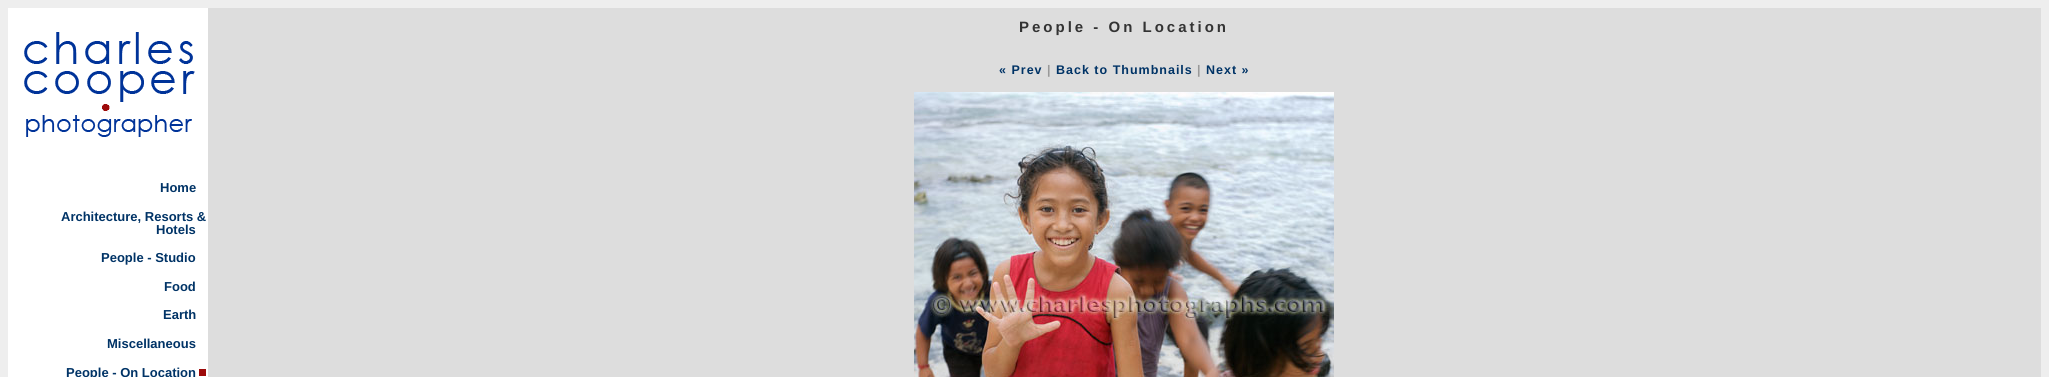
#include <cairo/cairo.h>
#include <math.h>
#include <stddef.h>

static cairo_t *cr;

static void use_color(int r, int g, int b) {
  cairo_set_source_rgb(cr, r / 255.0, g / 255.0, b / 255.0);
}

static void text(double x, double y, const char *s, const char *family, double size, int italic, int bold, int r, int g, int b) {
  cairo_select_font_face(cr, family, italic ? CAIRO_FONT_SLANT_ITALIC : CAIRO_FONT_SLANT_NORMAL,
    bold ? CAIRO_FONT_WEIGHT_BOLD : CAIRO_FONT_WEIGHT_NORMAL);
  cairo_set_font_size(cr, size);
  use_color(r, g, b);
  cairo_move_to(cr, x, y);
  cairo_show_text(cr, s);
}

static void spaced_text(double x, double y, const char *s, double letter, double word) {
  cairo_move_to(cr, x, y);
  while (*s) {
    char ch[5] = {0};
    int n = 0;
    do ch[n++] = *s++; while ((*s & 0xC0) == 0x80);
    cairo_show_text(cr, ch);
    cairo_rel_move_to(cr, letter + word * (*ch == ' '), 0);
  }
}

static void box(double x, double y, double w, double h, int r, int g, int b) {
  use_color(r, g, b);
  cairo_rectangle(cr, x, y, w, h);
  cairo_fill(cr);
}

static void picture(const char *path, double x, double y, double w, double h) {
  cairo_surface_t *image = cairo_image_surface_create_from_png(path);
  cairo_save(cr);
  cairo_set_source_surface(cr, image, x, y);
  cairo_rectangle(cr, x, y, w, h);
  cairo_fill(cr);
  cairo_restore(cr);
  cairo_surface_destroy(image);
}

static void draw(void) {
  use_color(238, 238, 238);
  cairo_paint(cr);
  box(208, 8, 1833, 369, 221, 221, 221);
  box(8, 8, 200, 369, 255, 255, 255);
  picture("img_01.png", 914, 92, 420, 285);
  picture("img_02.png", 24, 32, 171, 105);
  box(199, 369, 7, 7, 157, 10, 10);
  cairo_select_font_face(cr, "Liberation Sans", CAIRO_FONT_SLANT_NORMAL, CAIRO_FONT_WEIGHT_BOLD);
  cairo_set_font_size(cr, 15);
  use_color(51, 51, 51);
  spaced_text(1019, 32, "People - On Location", 3, 0);
  cairo_set_font_size(cr, 12.5);
  use_color(0, 51, 102);
  spaced_text(999, 74, "« Prev", 1, 0);
  use_color(153, 153, 153);
  spaced_text(1047, 74, "|", 1, 0);
  use_color(0, 51, 102);
  spaced_text(1056, 74, "Back to Thumbnails", 1, 0);
  use_color(153, 153, 153);
  spaced_text(1197, 74, "|", 1, 0);
  use_color(0, 51, 102);
  spaced_text(1206, 74, "Next »", 1, 0);
  text(160, 192, "Home", "Liberation Sans", 13, 0, 1, 0, 51, 102);
  text(61, 221, "Architecture, Resorts &", "Liberation Sans", 13, 0, 1, 0, 51, 102);
  text(156, 234, "Hotels", "Liberation Sans", 13, 0, 1, 0, 51, 102);
  text(101, 262, "People - Studio", "Liberation Sans", 13, 0, 1, 0, 51, 102);
  text(164, 291, "Food", "Liberation Sans", 13, 0, 1, 0, 51, 102);
  text(163, 319, "Earth", "Liberation Sans", 13, 0, 1, 0, 51, 102);
  text(107, 348, "Miscellaneous", "Liberation Sans", 13, 0, 1, 0, 51, 102);
  text(66, 377, "People - On Location", "Liberation Sans", 13, 0, 1, 0, 51, 102);
}

int main(void) {
  cairo_surface_t *surface = cairo_image_surface_create(CAIRO_FORMAT_RGB24, 2049, 377);
  cr = cairo_create(surface);
  cairo_font_options_t *options = cairo_font_options_create();
  cairo_font_options_set_hint_metrics(options, CAIRO_HINT_METRICS_OFF);
  cairo_font_options_set_hint_style(options, CAIRO_HINT_STYLE_NONE);
  cairo_set_font_options(cr, options);
  cairo_set_miter_limit(cr, 4);
  draw();
  cairo_surface_write_to_png(surface, "out.png");
  cairo_font_options_destroy(options);
  cairo_destroy(cr);
  cairo_surface_destroy(surface);
  return 0;
}
